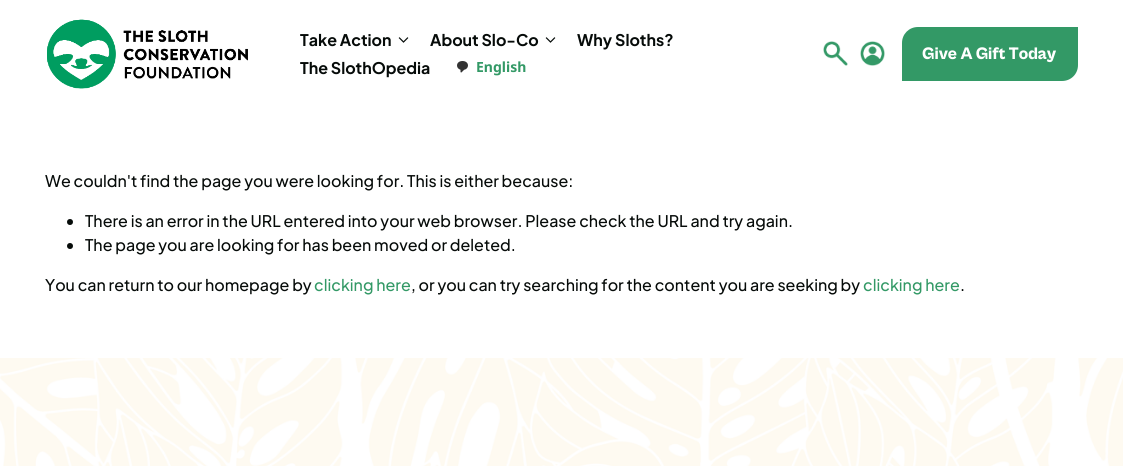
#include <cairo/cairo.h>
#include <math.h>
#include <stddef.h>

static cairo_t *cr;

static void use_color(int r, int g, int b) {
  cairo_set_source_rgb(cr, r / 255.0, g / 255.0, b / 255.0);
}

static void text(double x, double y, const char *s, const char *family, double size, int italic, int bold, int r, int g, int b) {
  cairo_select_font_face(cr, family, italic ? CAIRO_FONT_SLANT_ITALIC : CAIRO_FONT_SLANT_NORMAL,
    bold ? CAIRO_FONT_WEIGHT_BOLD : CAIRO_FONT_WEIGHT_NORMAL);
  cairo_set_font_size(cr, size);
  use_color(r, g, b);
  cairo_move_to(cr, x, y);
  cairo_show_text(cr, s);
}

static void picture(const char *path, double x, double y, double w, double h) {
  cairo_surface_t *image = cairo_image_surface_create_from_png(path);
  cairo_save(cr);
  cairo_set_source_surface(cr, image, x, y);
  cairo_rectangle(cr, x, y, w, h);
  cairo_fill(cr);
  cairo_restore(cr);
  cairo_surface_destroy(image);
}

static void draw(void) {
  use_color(255, 255, 255);
  cairo_paint(cr);
  picture("img_01.png", 47, 19, 201, 70);
  cairo_new_path(cr);
  cairo_move_to(cr, 407.5, 38);
  cairo_line_to(cr, 403.5, 42);
  cairo_line_to(cr, 399.5, 38);
  use_color(6, 11, 9);
  cairo_set_line_width(cr, 1.2);
  cairo_set_line_cap(cr, CAIRO_LINE_CAP_SQUARE);
  cairo_stroke(cr);
  cairo_new_path(cr);
  cairo_move_to(cr, 554.5, 38);
  cairo_line_to(cr, 550.5, 42);
  cairo_line_to(cr, 546.5, 38);
  cairo_stroke(cr);
  picture("img_02.png", 457, 61, 11, 12);
  picture("img_03.png", 823, 41, 25, 25);
  picture("img_04.png", 860, 41, 25, 25);
  use_color(51, 153, 102);
  cairo_new_path(cr);
  cairo_move_to(cr, 918, 27);
  cairo_line_to(cr, 1078, 27);
  cairo_line_to(cr, 1078, 65);
  cairo_curve_to(cr, 1078, 74, 1071, 81, 1062, 81);
  cairo_line_to(cr, 902, 81);
  cairo_line_to(cr, 902, 43);
  cairo_curve_to(cr, 902, 34, 909, 27, 918, 27);
  cairo_close_path(cr);
  cairo_fill(cr);
  use_color(6, 11, 9);
  cairo_arc(cr, 70, 222, 3, 0, 2 * M_PI);
  cairo_fill(cr);
  cairo_arc(cr, 70, 246, 3, 0, 2 * M_PI);
  cairo_fill(cr);
  picture("img_05.png", 0, 358, 1123, 108);
  text(300, 46, "Take Action", "Plus Jakarta Sans", 16, 0, 1, 6, 11, 9);
  text(430, 46, "About Slo-Co", "Plus Jakarta Sans", 16, 0, 1, 6, 11, 9);
  text(577, 46, "Why Sloths?", "Plus Jakarta Sans", 16, 0, 1, 6, 11, 9);
  text(300, 74, "The SlothOpedia", "Plus Jakarta Sans", 16, 0, 1, 6, 11, 9);
  text(476, 72, "English", "Noto Sans", 14, 0, 1, 51, 153, 102);
  text(922, 59, "Give A Gift Today", "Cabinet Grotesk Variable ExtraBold", 17.25, 0, 0, 255, 255, 255);
  text(45, 187, "We couldn't find the page you were looking for. This is either because:", "Plus Jakarta Sans Medium", 16, 0, 0, 6, 11, 9);
  text(85, 227, "There is an error in the URL entered into your web browser. Please check the URL and try again.", "Plus Jakarta Sans Medium", 16, 0, 0, 6, 11, 9);
  text(85, 251, "The page you are looking for has been moved or deleted.", "Plus Jakarta Sans Medium", 16, 0, 0, 6, 11, 9);
  text(45, 291, "You can return to our homepage by", "Plus Jakarta Sans Medium", 16, 0, 0, 6, 11, 9);
  text(314, 291, "clicking here", "Plus Jakarta Sans Medium", 16, 0, 0, 51, 153, 102);
  text(411, 291, ", or you can try searching for the content you are seeking by", "Plus Jakarta Sans Medium", 16, 0, 0, 6, 11, 9);
  text(863, 291, "clicking here", "Plus Jakarta Sans Medium", 16, 0, 0, 51, 153, 102);
  text(960, 291, ".", "Plus Jakarta Sans Medium", 16, 0, 0, 6, 11, 9);
}

int main(void) {
  cairo_surface_t *surface = cairo_image_surface_create(CAIRO_FORMAT_RGB24, 1123, 466);
  cr = cairo_create(surface);
  cairo_font_options_t *options = cairo_font_options_create();
  cairo_font_options_set_hint_metrics(options, CAIRO_HINT_METRICS_OFF);
  cairo_font_options_set_hint_style(options, CAIRO_HINT_STYLE_NONE);
  cairo_set_font_options(cr, options);
  cairo_set_miter_limit(cr, 4);
  draw();
  cairo_surface_write_to_png(surface, "out.png");
  cairo_font_options_destroy(options);
  cairo_destroy(cr);
  cairo_surface_destroy(surface);
  return 0;
}
